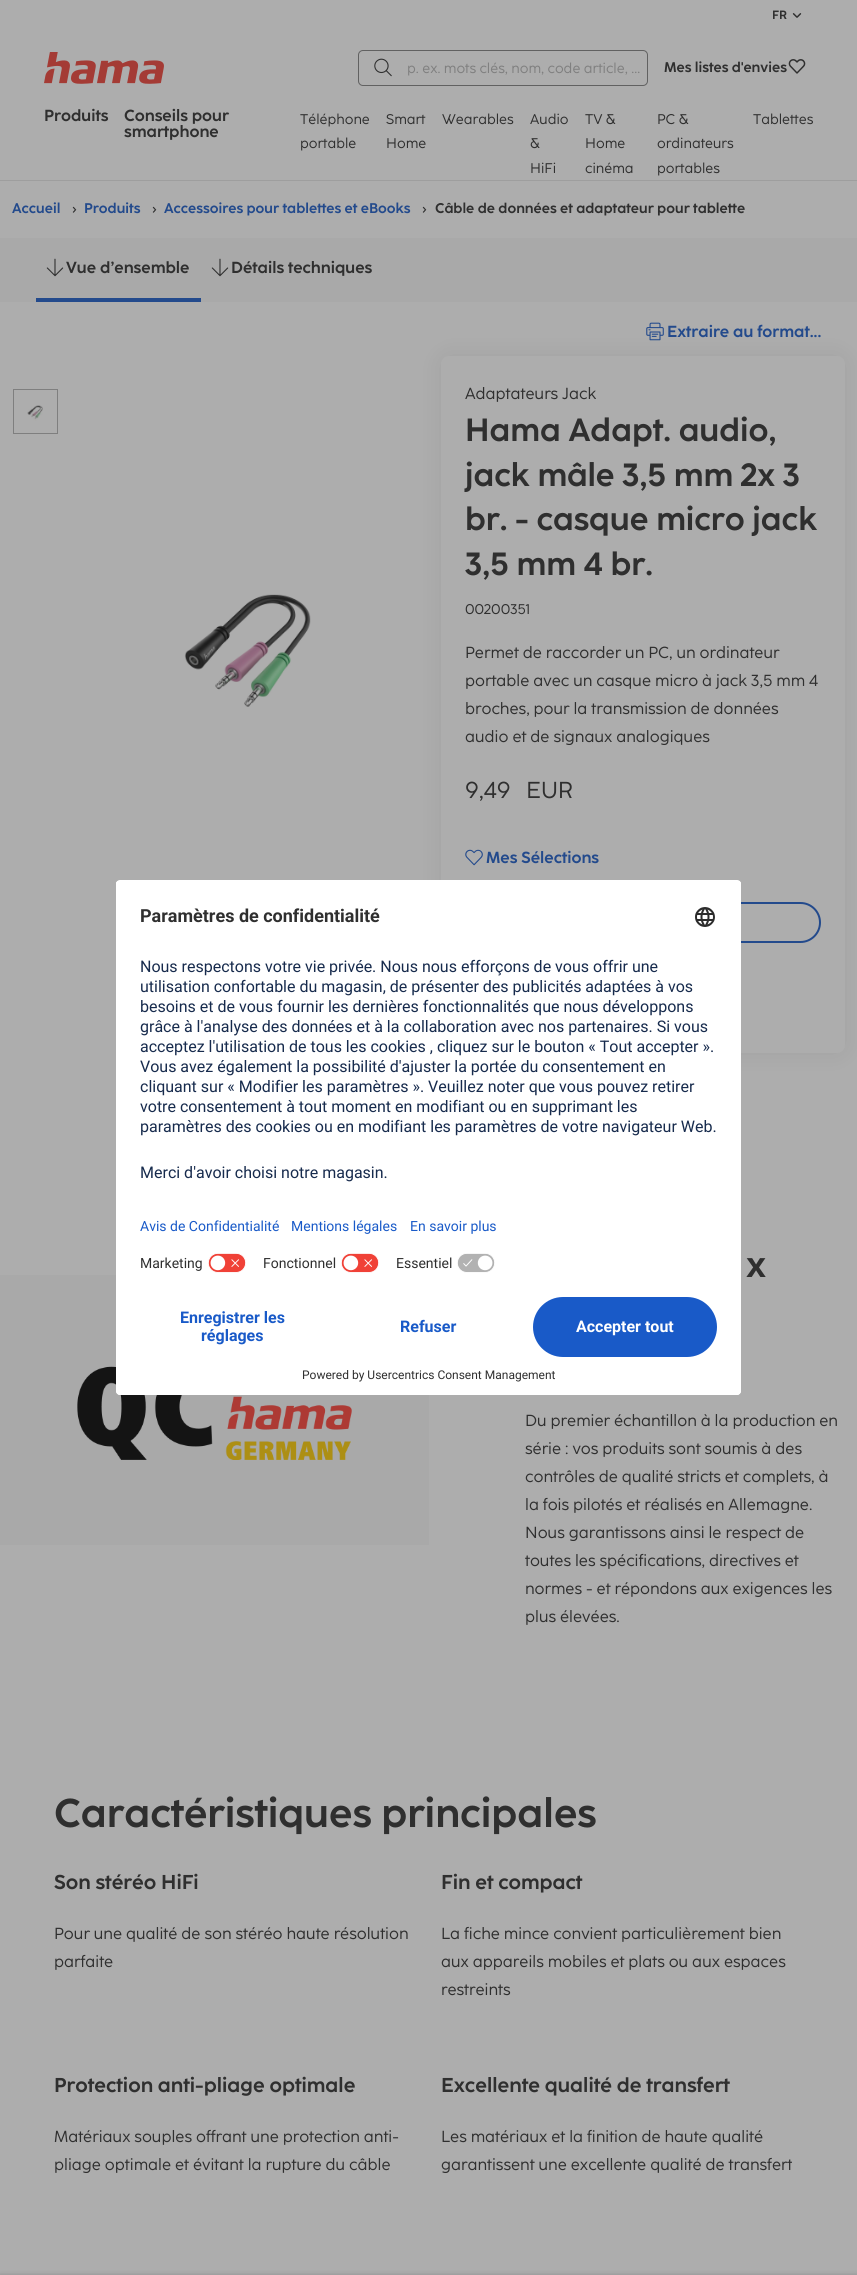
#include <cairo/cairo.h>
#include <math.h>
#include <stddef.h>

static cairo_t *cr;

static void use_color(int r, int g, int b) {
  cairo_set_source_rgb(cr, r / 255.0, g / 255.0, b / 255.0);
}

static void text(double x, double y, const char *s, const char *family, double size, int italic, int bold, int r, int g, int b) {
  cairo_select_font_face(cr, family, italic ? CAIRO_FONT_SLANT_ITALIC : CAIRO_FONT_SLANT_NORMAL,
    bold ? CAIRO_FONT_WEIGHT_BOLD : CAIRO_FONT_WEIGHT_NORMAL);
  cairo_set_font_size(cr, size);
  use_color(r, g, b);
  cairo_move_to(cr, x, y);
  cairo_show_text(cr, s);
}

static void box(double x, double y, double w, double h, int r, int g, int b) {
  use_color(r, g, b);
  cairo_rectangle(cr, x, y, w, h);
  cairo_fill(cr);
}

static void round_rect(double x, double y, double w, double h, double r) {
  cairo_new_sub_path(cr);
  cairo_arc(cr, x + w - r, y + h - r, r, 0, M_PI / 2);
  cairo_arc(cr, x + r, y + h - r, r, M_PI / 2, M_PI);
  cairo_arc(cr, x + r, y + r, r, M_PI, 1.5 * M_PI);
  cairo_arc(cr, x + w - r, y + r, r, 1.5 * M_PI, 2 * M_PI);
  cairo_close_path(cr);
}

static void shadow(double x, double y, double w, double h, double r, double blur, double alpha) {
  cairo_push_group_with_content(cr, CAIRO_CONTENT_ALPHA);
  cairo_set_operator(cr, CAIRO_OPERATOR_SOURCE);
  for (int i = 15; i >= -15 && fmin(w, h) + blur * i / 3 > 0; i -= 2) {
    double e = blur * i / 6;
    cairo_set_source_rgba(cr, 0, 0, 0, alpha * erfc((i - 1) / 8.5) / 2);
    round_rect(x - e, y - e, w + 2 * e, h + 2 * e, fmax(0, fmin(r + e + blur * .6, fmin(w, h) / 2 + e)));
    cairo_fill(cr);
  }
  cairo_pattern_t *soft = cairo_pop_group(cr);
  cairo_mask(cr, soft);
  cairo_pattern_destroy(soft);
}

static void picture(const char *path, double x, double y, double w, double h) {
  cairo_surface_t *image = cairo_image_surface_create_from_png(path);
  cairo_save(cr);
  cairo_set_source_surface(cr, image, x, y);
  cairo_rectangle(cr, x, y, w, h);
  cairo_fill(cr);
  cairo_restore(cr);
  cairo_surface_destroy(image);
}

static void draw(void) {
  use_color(173, 173, 173);
  cairo_paint(cr);
  box(0, 180, 857, 1, 158, 158, 158);
  picture("img_01.png", 792, 13, 10, 5);
  picture("img_02.png", 44, 52, 120, 32);
  round_rect(358.5, 50.5, 289, 35, 4.5);
  use_color(97, 97, 97);
  cairo_set_line_width(cr, 1);
  cairo_stroke(cr);
  picture("img_03.png", 374, 58, 18, 19);
  picture("img_04.png", 788, 59, 18, 15);
  box(0, 238, 857, 64, 169, 169, 169);
  box(36, 298, 165, 4, 35, 74, 140);
  picture("img_05.png", 46, 258, 18, 19);
  picture("img_06.png", 211, 258, 18, 19);
  picture("img_07.png", 646, 322, 18, 19);
  cairo_rectangle(cr, 13.5, 389.5, 44, 44);
  use_color(127, 127, 127);
  cairo_stroke(cr);
  picture("img_08.png", 27, 405, 16, 16);
  picture("img_09.png", 184, 594, 127, 113);
  use_color(20, 20, 20);
  shadow(441, 356, 404, 697, 8, 12, 0.08);
  use_color(173, 173, 173);
  round_rect(441, 356, 404, 697, 8);
  cairo_fill(cr);
  picture("img_10.png", 465, 849, 18, 17);
  round_rect(466, 903, 354, 39, 19.5);
  use_color(35, 74, 140);
  cairo_set_line_width(cr, 2);
  cairo_stroke(cr);
  box(0, 1275, 429, 270, 169, 169, 169);
  picture("img_11.png", 77, 1366, 275, 94);
  use_color(20, 20, 20);
  shadow(0, 2274, 857, 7, 0, 2, 0.15);
  use_color(255, 255, 255);
  round_rect(116, 880, 625, 515, 4);
  cairo_fill(cr);
  cairo_save(cr);
  round_rect(116, 880, 625, 515, 4);
  cairo_clip(cr);
  cairo_new_path(cr);
  cairo_move_to(cr, 120, 880);
  cairo_line_to(cr, 737, 880);
  cairo_curve_to(cr, 739, 880, 741, 882, 741, 884);
  cairo_line_to(cr, 741, 1289);
  cairo_line_to(cr, 116, 1289);
  cairo_line_to(cr, 116, 884);
  cairo_curve_to(cr, 116, 882, 118, 880, 120, 880);
  cairo_close_path(cr);
  cairo_clip(cr);
  box(116, 881, 625, 408, 255, 255, 255);
  box(116, 881, 625, 368, 255, 255, 255);
  cairo_restore(cr);
  picture("img_12.png", 695, 907, 20, 20);
  picture("img_13.png", 208, 1253, 38, 20);
  picture("img_13.png", 341, 1253, 38, 20);
  picture("img_14.png", 457, 1253, 38, 20);
  cairo_new_path(cr);
  cairo_move_to(cr, 116, 1289);
  cairo_line_to(cr, 741, 1289);
  cairo_line_to(cr, 741, 1391);
  cairo_curve_to(cr, 741, 1393, 739, 1395, 737, 1395);
  cairo_line_to(cr, 120, 1395);
  cairo_curve_to(cr, 118, 1395, 116, 1393, 116, 1391);
  cairo_close_path(cr);
  cairo_fill(cr);
  use_color(25, 90, 200);
  round_rect(533, 1297, 184, 60, 30);
  cairo_fill(cr);
  text(772, 19, "FR", "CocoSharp", 12, 0, 1, 47, 47, 47);
  text(407, 73, "p. ex. mots clés, nom, code article, …", "CocoSharp", 14, 0, 0, 127, 127, 127);
  text(664, 72, "Mes listes d'envies", "CocoSharp", 14, 0, 1, 47, 47, 47);
  text(44, 121, "Produits", "CocoSharp", 16, 0, 1, 47, 47, 47);
  text(124, 121, "Conseils pour", "CocoSharp", 16, 0, 1, 47, 47, 47);
  text(124, 137, "smartphone", "CocoSharp", 16, 0, 1, 47, 47, 47);
  text(300, 124, "Téléphone", "CocoSharp", 14, 0, 0, 47, 47, 47);
  text(300, 148, "portable", "CocoSharp", 14, 0, 0, 47, 47, 47);
  text(386, 124, "Smart", "CocoSharp", 14, 0, 0, 47, 47, 47);
  text(386, 148, "Home", "CocoSharp", 14, 0, 0, 47, 47, 47);
  text(442, 124, "Wearables", "CocoSharp", 14, 0, 0, 47, 47, 47);
  text(530, 124, "Audio", "CocoSharp", 14, 0, 0, 47, 47, 47);
  text(530, 148, "&", "CocoSharp", 14, 0, 0, 47, 47, 47);
  text(530, 173, "HiFi", "CocoSharp", 14, 0, 0, 47, 47, 47);
  text(585, 124, "TV &", "CocoSharp", 14, 0, 0, 47, 47, 47);
  text(585, 148, "Home", "CocoSharp", 14, 0, 0, 47, 47, 47);
  text(585, 173, "cinéma", "CocoSharp", 14, 0, 0, 47, 47, 47);
  text(657, 124, "PC &", "CocoSharp", 14, 0, 0, 47, 47, 47);
  text(657, 148, "ordinateurs", "CocoSharp", 14, 0, 0, 47, 47, 47);
  text(657, 173, "portables", "CocoSharp", 14, 0, 0, 47, 47, 47);
  text(753, 124, "Tablettes", "CocoSharp", 14, 0, 0, 47, 47, 47);
  text(12, 213, "Accueil", "CocoSharp", 14, 0, 1, 35, 74, 140);
  text(72, 213, "›", "CocoSharp", 14, 0, 0, 47, 47, 47);
  text(84, 213, "Produits", "CocoSharp", 14, 0, 1, 35, 74, 140);
  text(152, 213, "›", "CocoSharp", 14, 0, 0, 47, 47, 47);
  text(164, 213, "Accessoires pour tablettes et eBooks", "CocoSharp", 14, 0, 1, 35, 74, 140);
  text(422, 213, "›", "CocoSharp", 14, 0, 0, 47, 47, 47);
  text(435, 213, "Câble de données et adaptateur pour tablette", "CocoSharp", 14, 0, 1, 47, 47, 47);
  text(66, 273, "Vue d’ensemble", "CocoSharp", 16, 0, 1, 47, 47, 47);
  text(231, 273, "Détails techniques", "CocoSharp", 16, 0, 1, 47, 47, 47);
  text(667, 337, "Extraire au format...", "CocoSharp", 16, 0, 1, 35, 74, 140);
  text(465, 399, "Adaptateurs Jack", "CocoSharp", 16, 0, 0, 47, 47, 47);
  text(465, 441, "Hama Adapt. audio,", "CocoSharp", 32, 0, 1, 47, 47, 47);
  text(465, 486, "jack mâle 3,5 mm 2x 3", "CocoSharp", 32, 0, 1, 47, 47, 47);
  text(465, 530, "br. - casque micro jack", "CocoSharp", 32, 0, 1, 47, 47, 47);
  text(465, 575, "3,5 mm 4 br.", "CocoSharp", 32, 0, 1, 47, 47, 47);
  text(465, 614, "00200351", "CocoSharp", 14, 0, 0, 47, 47, 47);
  text(465, 658, "Permet de raccorder un PC, un ordinateur", "CocoSharp", 16, 0, 0, 47, 47, 47);
  text(465, 686, "portable avec un casque micro à jack 3,5 mm 4", "CocoSharp", 16, 0, 0, 47, 47, 47);
  text(465, 714, "broches, pour la transmission de données", "CocoSharp", 16, 0, 0, 47, 47, 47);
  text(465, 742, "audio et de signaux analogiques", "CocoSharp", 16, 0, 0, 47, 47, 47);
  text(465, 798, "9,49", "CocoSharp", 23, 0, 0, 47, 47, 47);
  text(526, 798, "EUR", "CocoSharp", 23, 0, 0, 47, 47, 47);
  text(486, 863, "Mes Sélections", "CocoSharp", 16, 0, 1, 35, 74, 140);
  text(746, 1277, "x", "CocoSharp", 36, 0, 1, 47, 47, 47);
  text(525, 1426, "Du premier échantillon à la production en", "CocoSharp", 16, 0, 0, 47, 47, 47);
  text(525, 1454, "série : vos produits sont soumis à des", "CocoSharp", 16, 0, 0, 47, 47, 47);
  text(525, 1482, "contrôles de qualité stricts et complets, à", "CocoSharp", 16, 0, 0, 47, 47, 47);
  text(525, 1510, "la fois pilotés et réalisés en Allemagne.", "CocoSharp", 16, 0, 0, 47, 47, 47);
  text(525, 1538, "Nous garantissons ainsi le respect de", "CocoSharp", 16, 0, 0, 47, 47, 47);
  text(525, 1566, "toutes les spécifications, directives et", "CocoSharp", 16, 0, 0, 47, 47, 47);
  text(525, 1594, "normes - et répondons aux exigences les", "CocoSharp", 16, 0, 0, 47, 47, 47);
  text(525, 1622, "plus élevées.", "CocoSharp", 16, 0, 0, 47, 47, 47);
  text(54, 1827, "Caractéristiques principales", "CocoSharp", 40, 0, 1, 47, 47, 47);
  text(54, 1889, "Son stéréo HiFi", "CocoSharp", 20, 0, 1, 47, 47, 47);
  text(54, 1939, "Pour une qualité de son stéréo haute résolution", "CocoSharp", 16, 0, 0, 47, 47, 47);
  text(54, 1967, "parfaite", "CocoSharp", 16, 0, 0, 47, 47, 47);
  text(441, 1889, "Fin et compact", "CocoSharp", 20, 0, 1, 47, 47, 47);
  text(441, 1939, "La fiche mince convient particulièrement bien", "CocoSharp", 16, 0, 0, 47, 47, 47);
  text(441, 1967, "aux appareils mobiles et plats ou aux espaces", "CocoSharp", 16, 0, 0, 47, 47, 47);
  text(441, 1995, "restreints", "CocoSharp", 16, 0, 0, 47, 47, 47);
  text(54, 2092, "Protection anti-pliage optimale", "CocoSharp", 20, 0, 1, 47, 47, 47);
  text(54, 2142, "Matériaux souples offrant une protection anti-", "CocoSharp", 16, 0, 0, 47, 47, 47);
  text(54, 2170, "pliage optimale et évitant la rupture du câble", "CocoSharp", 16, 0, 0, 47, 47, 47);
  text(441, 2092, "Excellente qualité de transfert", "CocoSharp", 20, 0, 1, 47, 47, 47);
  text(441, 2142, "Les matériaux et la finition de haute qualité", "CocoSharp", 16, 0, 0, 47, 47, 47);
  text(441, 2170, "garantissent une excellente qualité de transfert", "CocoSharp", 16, 0, 0, 47, 47, 47);
  text(140, 922, "Paramètres de confidentialité", "Roboto", 18, 0, 1, 47, 47, 47);
  text(140, 972, "Nous respectons votre vie privée. Nous nous efforçons de vous offrir une", "Roboto", 16, 0, 0, 23, 43, 77);
  text(140, 992, "utilisation confortable du magasin, de présenter des publicités adaptées à vos", "Roboto", 16, 0, 0, 23, 43, 77);
  text(140, 1012, "besoins et de vous fournir les dernières fonctionnalités que nous développons", "Roboto", 16, 0, 0, 23, 43, 77);
  text(140, 1032, "grâce à l'analyse des données et à la collaboration avec nos partenaires. Si vous", "Roboto", 16, 0, 0, 23, 43, 77);
  text(140, 1052, "acceptez l'utilisation de tous les cookies , cliquez sur le bouton « Tout accepter ».", "Roboto", 16, 0, 0, 23, 43, 77);
  text(140, 1072, "Vous avez également la possibilité d'ajuster la portée du consentement en", "Roboto", 16, 0, 0, 23, 43, 77);
  text(140, 1092, "cliquant sur « Modifier les paramètres ». Veuillez noter que vous pouvez retirer", "Roboto", 16, 0, 0, 23, 43, 77);
  text(140, 1112, "votre consentement à tout moment en modifiant ou en supprimant les", "Roboto", 16, 0, 0, 23, 43, 77);
  text(140, 1132, "paramètres des cookies ou en modifiant les paramètres de votre navigateur Web.", "Roboto", 16, 0, 0, 23, 43, 77);
  text(140, 1178, "Merci d'avoir choisi notre magasin.", "Roboto", 16, 0, 0, 23, 43, 77);
  text(140, 1231, "Avis de Confidentialité", "Roboto", 14, 0, 0, 25, 90, 200);
  text(291, 1231, "Mentions légales", "Roboto", 14, 0, 0, 25, 90, 200);
  text(410, 1231, "En savoir plus", "Roboto", 14, 0, 0, 25, 90, 200);
  text(140, 1268, "Marketing", "Roboto", 14, 0, 0, 47, 47, 47);
  text(263, 1268, "Fonctionnel", "Roboto", 14, 0, 0, 47, 47, 47);
  text(396, 1268, "Essentiel", "Roboto", 14, 0, 0, 47, 47, 47);
  text(180, 1323, "Enregistrer les", "Roboto", 16, 0, 1, 25, 90, 200);
  text(201, 1341, "réglages", "Roboto", 16, 0, 1, 25, 90, 200);
  text(400, 1332, "Refuser", "Roboto", 16, 0, 1, 25, 90, 200);
  text(576, 1332, "Accepter tout", "Roboto", 16, 0, 1, 255, 255, 255);
  text(302, 1379, "Powered by Usercentrics Consent Management", "Roboto", 12, 0, 0, 47, 47, 47);
}

int main(void) {
  cairo_surface_t *surface = cairo_image_surface_create(CAIRO_FORMAT_RGB24, 857, 2275);
  cr = cairo_create(surface);
  cairo_font_options_t *options = cairo_font_options_create();
  cairo_font_options_set_hint_metrics(options, CAIRO_HINT_METRICS_OFF);
  cairo_font_options_set_hint_style(options, CAIRO_HINT_STYLE_NONE);
  cairo_set_font_options(cr, options);
  cairo_set_miter_limit(cr, 4);
  draw();
  cairo_surface_write_to_png(surface, "out.png");
  cairo_font_options_destroy(options);
  cairo_destroy(cr);
  cairo_surface_destroy(surface);
  return 0;
}
